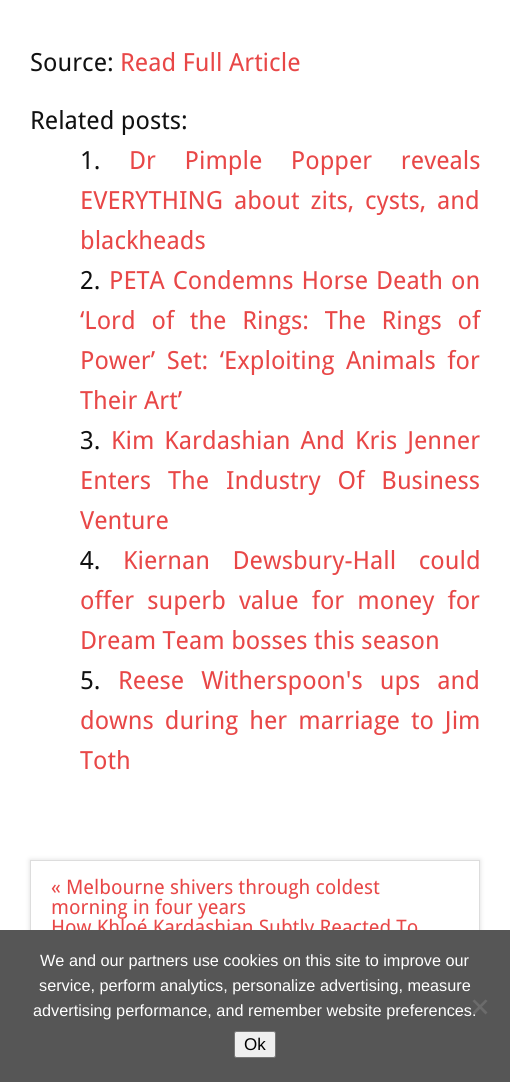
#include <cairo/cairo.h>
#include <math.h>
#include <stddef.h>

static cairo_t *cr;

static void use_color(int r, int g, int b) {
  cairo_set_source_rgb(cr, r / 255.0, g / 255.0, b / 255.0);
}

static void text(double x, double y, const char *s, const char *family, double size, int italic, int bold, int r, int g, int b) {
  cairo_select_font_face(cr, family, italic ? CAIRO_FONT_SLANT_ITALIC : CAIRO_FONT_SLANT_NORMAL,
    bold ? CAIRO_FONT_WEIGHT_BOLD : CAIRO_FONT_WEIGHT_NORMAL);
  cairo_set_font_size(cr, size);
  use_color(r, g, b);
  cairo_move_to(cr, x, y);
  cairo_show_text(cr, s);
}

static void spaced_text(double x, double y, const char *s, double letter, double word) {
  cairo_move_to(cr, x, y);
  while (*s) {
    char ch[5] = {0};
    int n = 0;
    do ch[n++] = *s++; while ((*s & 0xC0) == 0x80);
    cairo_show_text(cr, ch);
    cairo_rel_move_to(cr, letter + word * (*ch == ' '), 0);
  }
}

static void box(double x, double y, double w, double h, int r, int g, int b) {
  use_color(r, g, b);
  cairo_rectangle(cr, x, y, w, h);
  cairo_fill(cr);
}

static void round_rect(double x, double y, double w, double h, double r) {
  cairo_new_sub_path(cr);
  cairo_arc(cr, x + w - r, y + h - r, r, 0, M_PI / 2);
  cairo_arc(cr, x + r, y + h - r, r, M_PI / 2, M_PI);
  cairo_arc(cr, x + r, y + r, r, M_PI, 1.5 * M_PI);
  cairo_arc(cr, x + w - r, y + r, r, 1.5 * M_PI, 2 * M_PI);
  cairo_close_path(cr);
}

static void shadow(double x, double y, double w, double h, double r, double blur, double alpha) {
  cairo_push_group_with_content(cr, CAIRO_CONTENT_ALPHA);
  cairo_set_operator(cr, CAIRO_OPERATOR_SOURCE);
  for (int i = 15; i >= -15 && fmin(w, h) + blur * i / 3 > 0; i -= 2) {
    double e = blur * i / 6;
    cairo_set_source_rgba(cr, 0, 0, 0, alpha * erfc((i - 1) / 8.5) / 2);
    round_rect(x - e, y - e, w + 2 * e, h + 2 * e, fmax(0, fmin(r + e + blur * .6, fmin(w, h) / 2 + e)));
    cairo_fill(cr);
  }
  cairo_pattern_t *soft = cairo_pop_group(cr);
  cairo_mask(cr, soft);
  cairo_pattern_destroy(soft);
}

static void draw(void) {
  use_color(255, 255, 255);
  cairo_paint(cr);
  cairo_save(cr);
  cairo_set_fill_rule(cr, CAIRO_FILL_RULE_EVEN_ODD);
  cairo_new_path(cr);
  cairo_move_to(cr, 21, 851);
  cairo_line_to(cr, 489, 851);
  cairo_line_to(cr, 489, 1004);
  cairo_line_to(cr, 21, 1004);
  cairo_close_path(cr);
  cairo_move_to(cr, 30, 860);
  cairo_line_to(cr, 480, 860);
  cairo_line_to(cr, 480, 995);
  cairo_line_to(cr, 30, 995);
  cairo_close_path(cr);
  cairo_clip(cr);
  use_color(221, 221, 221);
  shadow(30, 860, 450, 135, 0, 2.5, 1);
  cairo_restore(cr);
  cairo_rectangle(cr, 30.5, 860.5, 449, 134);
  use_color(221, 221, 221);
  cairo_set_line_width(cr, 1);
  cairo_stroke(cr);
  text(30, 71, "Source:", "Droid Sans", 25, 0, 0, 17, 17, 17);
  text(120, 71, "Read Full Article", "Droid Sans", 25, 0, 0, 232, 71, 71);
  text(30, 129, "Related posts:", "Droid Sans", 25, 0, 0, 17, 17, 17);
  text(80, 169, "1.", "Droid Sans", 25, 0, 0, 17, 17, 17);
  use_color(232, 71, 71);
  spaced_text(129, 169, "Dr Pimple Popper reveals", 0, 22);
  spaced_text(80, 209, "EVERYTHING about zits, cysts, and", 0, 4.5);
  text(80, 249, "blackheads", "Droid Sans", 25, 0, 0, 232, 71, 71);
  text(80, 289, "2.", "Droid Sans", 25, 0, 0, 17, 17, 17);
  use_color(232, 71, 71);
  spaced_text(109, 289, "PETA Condemns Horse Death on", 0, 1.5);
  spaced_text(80, 329, "‘Lord of the Rings: The Rings of", 0, 9.25);
  spaced_text(80, 369, "Power’ Set: ‘Exploiting Animals for", 0, 5);
  text(80, 409, "Their Art’", "Droid Sans", 25, 0, 0, 232, 71, 71);
  text(80, 449, "3.", "Droid Sans", 25, 0, 0, 17, 17, 17);
  use_color(232, 71, 71);
  spaced_text(111, 449, "Kim Kardashian And Kris Jenner", 0, 3.5);
  spaced_text(80, 489, "Enters The Industry Of Business", 0, 10.5);
  text(80, 529, "Venture", "Droid Sans", 25, 0, 0, 232, 71, 71);
  text(80, 569, "4.", "Droid Sans", 25, 0, 0, 17, 17, 17);
  use_color(232, 71, 71);
  spaced_text(123, 569, "Kiernan Dewsbury-Hall could", 0, 16);
  spaced_text(80, 609, "offer superb value for money for", 0, 6.5);
  text(80, 649, "Dream Team bosses this season", "Droid Sans", 25, 0, 0, 232, 71, 71);
  text(80, 689, "5.", "Droid Sans", 25, 0, 0, 17, 17, 17);
  use_color(232, 71, 71);
  spaced_text(118, 689, "Reese Witherspoon's ups and", 0, 10.5);
  spaced_text(80, 729, "downs during her marriage to Jim", 0, 4.5);
  text(80, 769, "Toth", "Droid Sans", 25, 0, 0, 232, 71, 71);
  text(51, 894, "« Melbourne shivers through coldest", "Droid Sans", 20, 0, 0, 232, 71, 71);
  text(51, 914, "morning in four years", "Droid Sans", 20, 0, 0, 232, 71, 71);
  text(51, 934, "How Khloé Kardashian Subtly Reacted To", "Droid Sans", 20, 0, 0, 232, 71, 71);
  box(0, 930, 510, 152, 86, 86, 86);
  text(40, 966, "We and our partners use cookies on this site to improve our", "Liberation Sans", 16.25, 0, 0, 255, 255, 255);
  text(39, 991, "service, perform analytics, personalize advertising, measure", "Liberation Sans", 16.25, 0, 0, 255, 255, 255);
  text(33, 1016, "advertising performance, and remember website preferences.", "Liberation Sans", 16.25, 0, 0, 255, 255, 255);
  use_color(107, 107, 107);
  cairo_new_path(cr);
  cairo_move_to(cr, 485.5, 999.5);
  cairo_line_to(cr, 487.5, 1001);
  cairo_line_to(cr, 474.5, 1014.5);
  cairo_line_to(cr, 472.5, 1012.5);
  cairo_close_path(cr);
  cairo_fill(cr);
  cairo_new_path(cr);
  cairo_move_to(cr, 472.5, 1001);
  cairo_line_to(cr, 474.5, 999.5);
  cairo_line_to(cr, 487.5, 1012.5);
  cairo_line_to(cr, 485.5, 1014.5);
  cairo_close_path(cr);
  cairo_fill(cr);
  use_color(239, 239, 239);
  round_rect(234.5, 1031.5, 41, 26, 2);
  cairo_fill_preserve(cr);
  use_color(118, 118, 118);
  cairo_stroke(cr);
  text(244, 1050, "Ok", "Liberation Sans", 17, 0, 0, 0, 0, 0);
}

int main(void) {
  cairo_surface_t *surface = cairo_image_surface_create(CAIRO_FORMAT_RGB24, 510, 1082);
  cr = cairo_create(surface);
  cairo_font_options_t *options = cairo_font_options_create();
  cairo_font_options_set_hint_metrics(options, CAIRO_HINT_METRICS_OFF);
  cairo_font_options_set_hint_style(options, CAIRO_HINT_STYLE_NONE);
  cairo_set_font_options(cr, options);
  cairo_set_miter_limit(cr, 4);
  draw();
  cairo_surface_write_to_png(surface, "out.png");
  cairo_font_options_destroy(options);
  cairo_destroy(cr);
  cairo_surface_destroy(surface);
  return 0;
}
